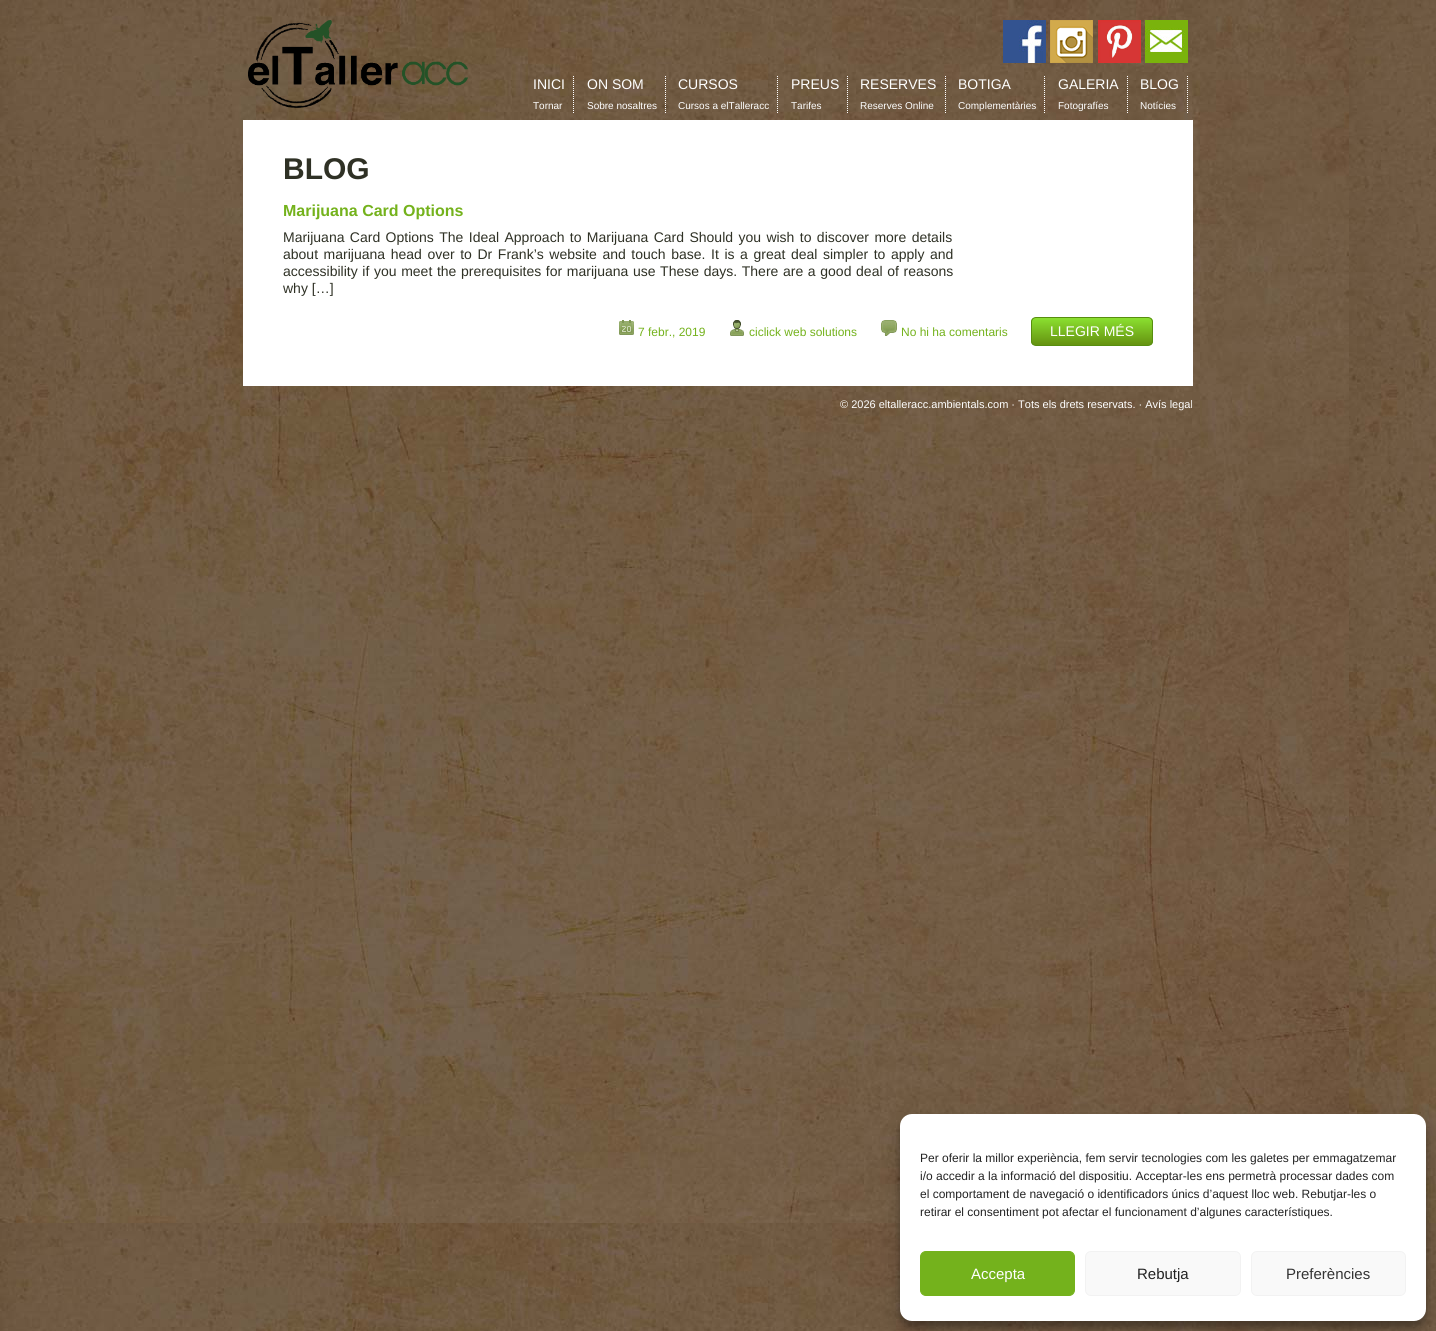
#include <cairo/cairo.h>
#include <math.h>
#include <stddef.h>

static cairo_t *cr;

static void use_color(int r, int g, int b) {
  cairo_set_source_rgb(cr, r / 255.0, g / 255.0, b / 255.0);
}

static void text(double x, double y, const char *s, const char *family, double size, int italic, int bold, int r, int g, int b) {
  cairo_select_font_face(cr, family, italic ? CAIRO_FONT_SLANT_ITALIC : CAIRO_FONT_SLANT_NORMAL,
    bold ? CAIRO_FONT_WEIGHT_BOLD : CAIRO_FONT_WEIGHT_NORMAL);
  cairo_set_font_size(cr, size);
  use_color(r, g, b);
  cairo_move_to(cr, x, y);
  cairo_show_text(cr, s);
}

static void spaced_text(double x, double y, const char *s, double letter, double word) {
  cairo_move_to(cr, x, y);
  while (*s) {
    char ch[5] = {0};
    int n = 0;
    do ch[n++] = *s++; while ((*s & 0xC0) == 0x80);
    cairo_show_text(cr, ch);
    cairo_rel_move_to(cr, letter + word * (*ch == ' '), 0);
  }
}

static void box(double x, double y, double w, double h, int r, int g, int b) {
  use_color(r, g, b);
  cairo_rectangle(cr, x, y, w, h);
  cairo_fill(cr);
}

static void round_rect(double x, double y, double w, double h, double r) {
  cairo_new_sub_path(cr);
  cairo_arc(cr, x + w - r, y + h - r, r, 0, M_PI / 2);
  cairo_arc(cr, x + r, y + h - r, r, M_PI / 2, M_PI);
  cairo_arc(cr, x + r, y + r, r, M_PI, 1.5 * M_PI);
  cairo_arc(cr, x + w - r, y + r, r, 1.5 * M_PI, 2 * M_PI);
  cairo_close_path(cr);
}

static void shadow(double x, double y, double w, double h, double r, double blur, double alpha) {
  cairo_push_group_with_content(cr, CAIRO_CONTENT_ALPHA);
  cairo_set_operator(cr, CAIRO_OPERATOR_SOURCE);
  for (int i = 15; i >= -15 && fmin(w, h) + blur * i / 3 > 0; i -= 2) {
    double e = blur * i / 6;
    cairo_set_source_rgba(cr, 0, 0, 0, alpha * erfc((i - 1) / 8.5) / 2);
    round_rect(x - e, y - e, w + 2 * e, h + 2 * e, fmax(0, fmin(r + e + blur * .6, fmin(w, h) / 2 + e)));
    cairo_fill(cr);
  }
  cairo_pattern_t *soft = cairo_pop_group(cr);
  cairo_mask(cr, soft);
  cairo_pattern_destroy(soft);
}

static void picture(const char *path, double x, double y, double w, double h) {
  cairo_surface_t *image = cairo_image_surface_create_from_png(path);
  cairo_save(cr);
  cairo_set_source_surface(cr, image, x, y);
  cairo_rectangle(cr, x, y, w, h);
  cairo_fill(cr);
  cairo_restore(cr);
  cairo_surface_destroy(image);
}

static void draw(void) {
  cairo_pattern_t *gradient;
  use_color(255, 255, 255);
  cairo_paint(cr);
  picture("img_01.png", 0, 0, 1436, 1331);
  picture("img_02.png", 248, 20, 220, 88);
  picture("img_03.png", 1003, 20, 43, 43);
  picture("img_04.png", 1050, 20, 43, 43);
  picture("img_05.png", 1098, 20, 43, 43);
  picture("img_06.png", 1145, 20, 43, 43);
  cairo_new_path(cr);
  cairo_move_to(cr, 573.5, 76);
  cairo_line_to(cr, 573.5, 114);
  use_color(255, 255, 255);
  cairo_set_line_width(cr, 1);
  cairo_set_dash(cr, (double[]){1, 1}, 2, 0);
  cairo_stroke(cr);
  cairo_new_path(cr);
  cairo_move_to(cr, 665.5, 76);
  cairo_line_to(cr, 665.5, 114);
  cairo_stroke(cr);
  cairo_new_path(cr);
  cairo_move_to(cr, 777.5, 76);
  cairo_line_to(cr, 777.5, 114);
  cairo_stroke(cr);
  cairo_new_path(cr);
  cairo_move_to(cr, 847.5, 76);
  cairo_line_to(cr, 847.5, 114);
  cairo_stroke(cr);
  cairo_new_path(cr);
  cairo_move_to(cr, 945.5, 76);
  cairo_line_to(cr, 945.5, 114);
  cairo_stroke(cr);
  cairo_new_path(cr);
  cairo_move_to(cr, 1044.5, 76);
  cairo_line_to(cr, 1044.5, 114);
  cairo_stroke(cr);
  cairo_new_path(cr);
  cairo_move_to(cr, 1127.5, 76);
  cairo_line_to(cr, 1127.5, 114);
  cairo_stroke(cr);
  cairo_new_path(cr);
  cairo_move_to(cr, 1187.5, 76);
  cairo_line_to(cr, 1187.5, 114);
  cairo_stroke(cr);
  box(243, 120, 950, 266, 255, 255, 255);
  picture("img_07.png", 619, 320, 15, 15);
  picture("img_08.png", 730, 320, 14, 16);
  picture("img_09.png", 881, 320, 16, 16);
  cairo_save(cr);
  round_rect(1031, 317, 122, 29, 5);
  cairo_clip(cr);
  gradient = cairo_pattern_create_linear(1092, 318, 1092, 345);
  cairo_pattern_add_color_stop_rgba(gradient, 0, 0.545, 0.878, 0.188, 1);
  cairo_pattern_add_color_stop_rgba(gradient, 1, 0.396, 0.573, 0.063, 1);
  cairo_set_source(cr, gradient);
  cairo_pattern_destroy(gradient);
  cairo_rectangle(cr, 1031, 318, 122, 27);
  cairo_fill(cr);
  cairo_restore(cr);
  round_rect(1031.5, 317.5, 121, 28, 4.5);
  use_color(87, 142, 15);
  cairo_set_dash(cr, NULL, 0, 0);
  cairo_stroke(cr);
  use_color(0, 0, 0);
  shadow(900, 1120, 526, 207, 12, 3, 0.23);
  shadow(900, 1124, 526, 207, 12, 10, 0.19);
  use_color(255, 255, 255);
  round_rect(900, 1114, 526, 207, 12);
  cairo_fill(cr);
  use_color(116, 178, 28);
  round_rect(920.5, 1251.5, 154, 44, 5.5);
  cairo_fill_preserve(cr);
  cairo_stroke(cr);
  use_color(249, 249, 249);
  round_rect(1085.5, 1251.5, 155, 44, 5.5);
  cairo_fill_preserve(cr);
  use_color(242, 242, 242);
  cairo_stroke(cr);
  use_color(249, 249, 249);
  round_rect(1251.5, 1251.5, 154, 44, 5.5);
  cairo_fill_preserve(cr);
  use_color(242, 242, 242);
  cairo_stroke(cr);
  text(533, 89, "INICI", "Liberation Sans", 14, 0, 0, 255, 255, 255);
  text(533, 109, "Tornar", "Liberation Sans", 10, 0, 0, 255, 255, 255);
  text(587, 89, "ON SOM", "Liberation Sans", 14, 0, 0, 255, 255, 255);
  text(587, 109, "Sobre nosaltres", "Liberation Sans", 10, 0, 0, 255, 255, 255);
  text(678, 89, "CURSOS", "Liberation Sans", 14, 0, 0, 255, 255, 255);
  text(678, 109, "Cursos a elTalleracc", "Liberation Sans", 10, 0, 0, 255, 255, 255);
  text(791, 89, "PREUS", "Liberation Sans", 14, 0, 0, 255, 255, 255);
  text(791, 109, "Tarifes", "Liberation Sans", 10, 0, 0, 255, 255, 255);
  text(860, 89, "RESERVES", "Liberation Sans", 14, 0, 0, 255, 255, 255);
  text(860, 109, "Reserves Online", "Liberation Sans", 10, 0, 0, 255, 255, 255);
  text(958, 89, "BOTIGA", "Liberation Sans", 14, 0, 0, 255, 255, 255);
  text(958, 109, "Complementàries", "Liberation Sans", 10, 0, 0, 255, 255, 255);
  text(1058, 89, "GALERIA", "Liberation Sans", 14, 0, 0, 255, 255, 255);
  text(1058, 109, "Fotografíes", "Liberation Sans", 10, 0, 0, 255, 255, 255);
  text(1140, 89, "BLOG", "Liberation Sans", 14, 0, 0, 255, 255, 255);
  text(1140, 109, "Notícies", "Liberation Sans", 10, 0, 0, 255, 255, 255);
  text(283, 179, "BLOG", "Liberation Sans", 30, 0, 1, 47, 49, 37);
  text(283, 216, "Marijuana Card Options", "Liberation Sans", 16, 0, 1, 116, 178, 28);
  cairo_select_font_face(cr, "Liberation Sans", CAIRO_FONT_SLANT_NORMAL, CAIRO_FONT_WEIGHT_NORMAL);
  cairo_set_font_size(cr, 14);
  use_color(47, 49, 37);
  spaced_text(283, 242, "Marijuana Card Options The Ideal Approach to Marijuana Card Should you wish to discover more details", 0, 1.5);
  spaced_text(283, 259, "about marijuana head over to Dr Frank’s website and touch base. It is a great deal simpler to apply and", 0, 1.7);
  spaced_text(283, 276, "accessibility if you meet the prerequisites for marijuana use These days. There are a good deal of reasons", 0, 0.75);
  text(283, 293, "why […]", "Liberation Sans", 14, 0, 0, 47, 49, 37);
  text(638, 336, "7 febr., 2019", "Liberation Sans", 12, 0, 0, 116, 178, 28);
  text(749, 336, "ciclick web solutions", "Liberation Sans", 12, 0, 0, 116, 178, 28);
  text(901, 336, "No hi ha comentaris", "Liberation Sans", 12, 0, 0, 116, 178, 28);
  text(1050, 336, "LLEGIR MÉS", "Liberation Sans", 14, 0, 0, 255, 255, 255);
  text(840, 408, "© 2026 eltalleracc.ambientals.com · Tots els drets reservats. · Avís legal", "Liberation Sans", 11, 0, 0, 255, 255, 255);
  text(920, 1162, "Per oferir la millor experiència, fem servir tecnologies com les galetes per emmagatzemar", "Liberation Sans", 12, 0, 0, 34, 34, 34);
  text(920, 1180, "i/o accedir a la informació del dispositiu. Acceptar-les ens permetrà processar dades com", "Liberation Sans", 12, 0, 0, 34, 34, 34);
  text(920, 1198, "el comportament de navegació o identificadors únics d’aquest lloc web. Rebutjar-les o", "Liberation Sans", 12, 0, 0, 34, 34, 34);
  text(920, 1216, "retirar el consentiment pot afectar el funcionament d’algunes característiques.", "Liberation Sans", 12, 0, 0, 34, 34, 34);
  text(971, 1279, "Accepta", "Liberation Sans", 15, 0, 0, 255, 255, 255);
  text(1137, 1279, "Rebutja", "Liberation Sans", 15, 0, 0, 34, 34, 34);
  text(1286, 1279, "Preferències", "Liberation Sans", 15, 0, 0, 51, 51, 51);
}

int main(void) {
  cairo_surface_t *surface = cairo_image_surface_create(CAIRO_FORMAT_RGB24, 1436, 1331);
  cr = cairo_create(surface);
  cairo_font_options_t *options = cairo_font_options_create();
  cairo_font_options_set_hint_metrics(options, CAIRO_HINT_METRICS_OFF);
  cairo_font_options_set_hint_style(options, CAIRO_HINT_STYLE_NONE);
  cairo_set_font_options(cr, options);
  cairo_set_miter_limit(cr, 4);
  draw();
  cairo_surface_write_to_png(surface, "out.png");
  cairo_font_options_destroy(options);
  cairo_destroy(cr);
  cairo_surface_destroy(surface);
  return 0;
}
